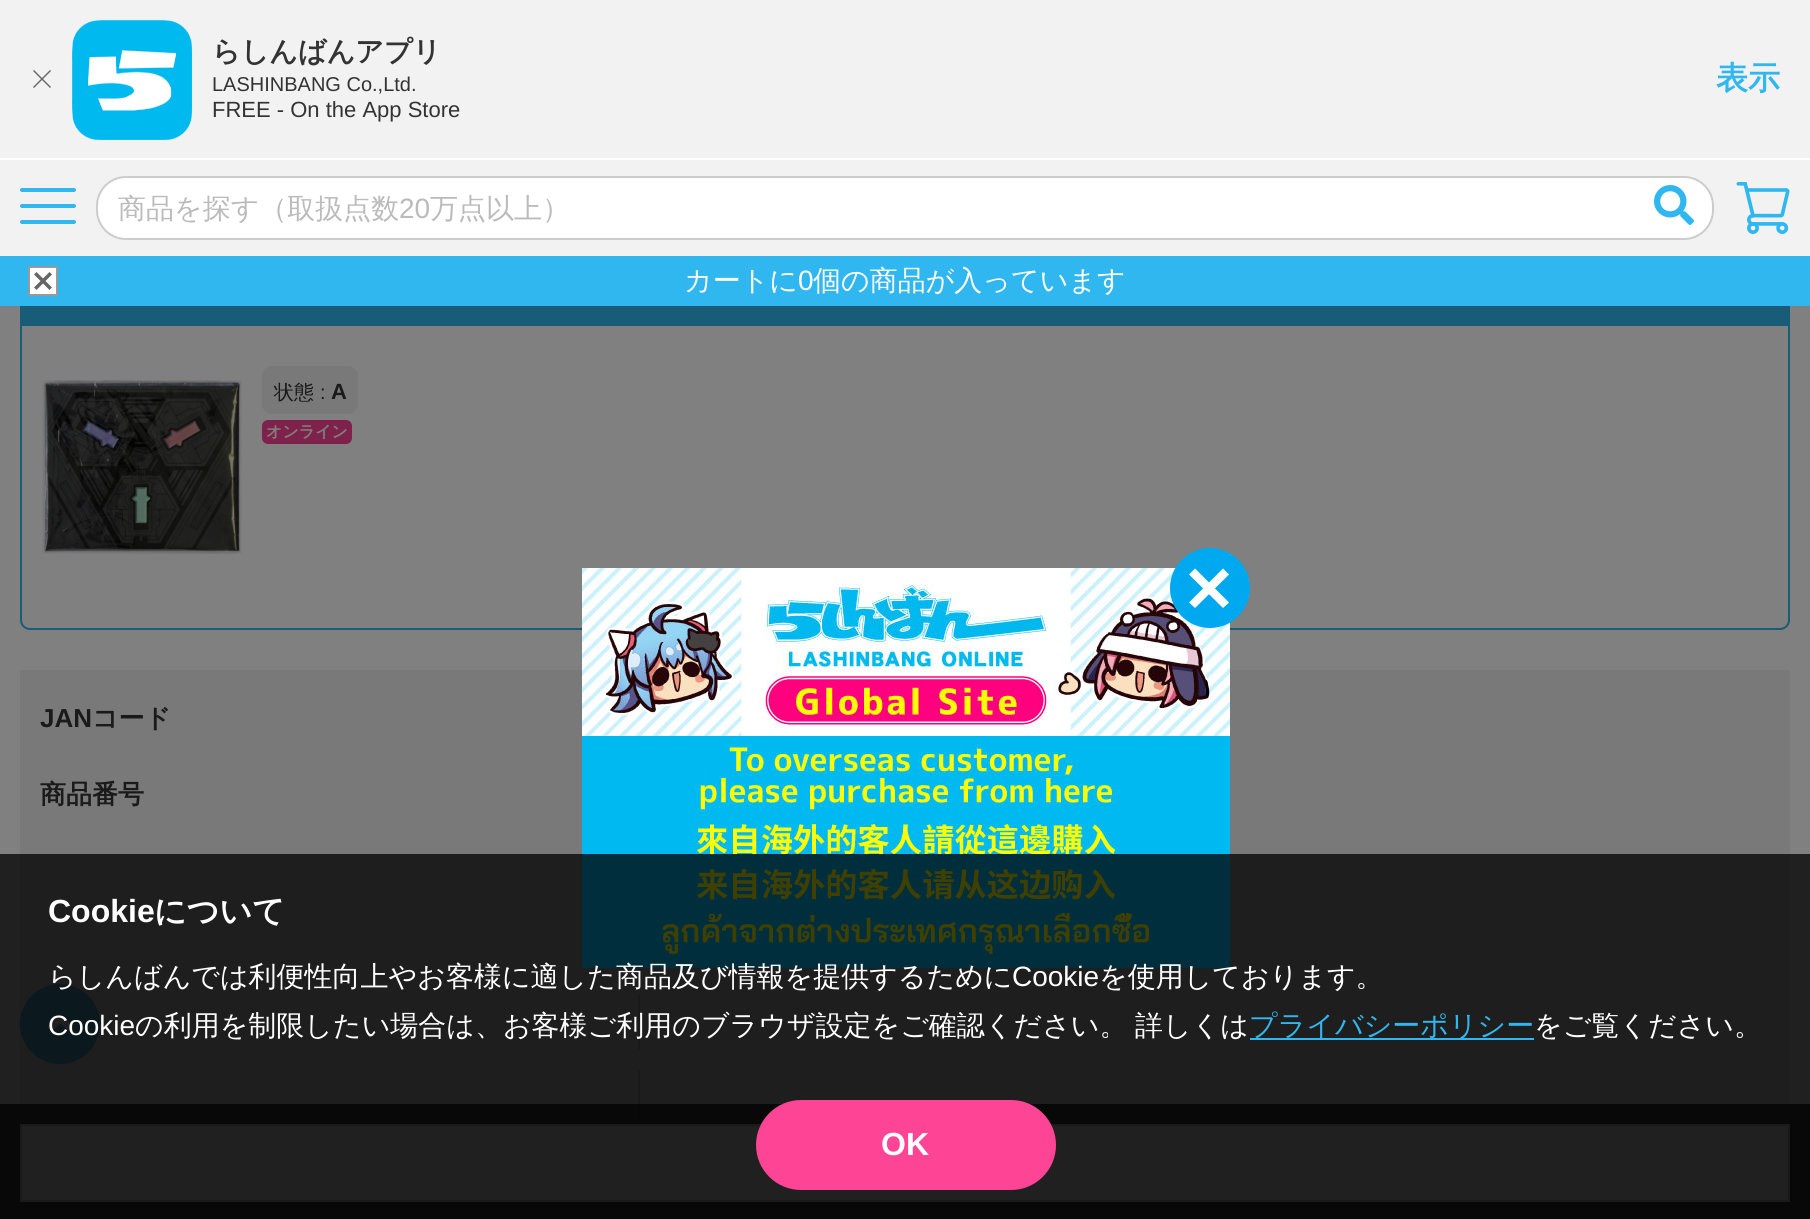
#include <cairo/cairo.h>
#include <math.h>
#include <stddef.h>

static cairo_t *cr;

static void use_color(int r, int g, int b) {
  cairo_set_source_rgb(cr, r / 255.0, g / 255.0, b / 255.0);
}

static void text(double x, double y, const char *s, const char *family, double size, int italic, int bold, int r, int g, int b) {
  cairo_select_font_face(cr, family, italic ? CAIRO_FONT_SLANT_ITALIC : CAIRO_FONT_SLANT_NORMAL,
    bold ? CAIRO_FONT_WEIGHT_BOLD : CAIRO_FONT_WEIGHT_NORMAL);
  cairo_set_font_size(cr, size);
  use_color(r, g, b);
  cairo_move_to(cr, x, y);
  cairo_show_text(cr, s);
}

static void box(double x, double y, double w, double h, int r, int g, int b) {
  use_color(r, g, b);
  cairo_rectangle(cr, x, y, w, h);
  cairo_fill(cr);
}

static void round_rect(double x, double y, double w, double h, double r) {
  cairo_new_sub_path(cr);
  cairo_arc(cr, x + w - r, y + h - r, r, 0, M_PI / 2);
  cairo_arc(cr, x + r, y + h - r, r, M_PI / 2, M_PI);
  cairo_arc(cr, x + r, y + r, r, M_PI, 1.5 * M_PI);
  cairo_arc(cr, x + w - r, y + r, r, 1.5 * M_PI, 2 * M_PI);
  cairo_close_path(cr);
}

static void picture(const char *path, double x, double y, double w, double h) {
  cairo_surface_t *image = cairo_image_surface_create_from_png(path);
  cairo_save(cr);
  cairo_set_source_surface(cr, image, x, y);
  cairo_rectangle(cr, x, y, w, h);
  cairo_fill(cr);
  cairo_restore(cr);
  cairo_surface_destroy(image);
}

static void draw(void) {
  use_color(128, 128, 128);
  cairo_paint(cr);
  box(0, 0, 1810, 158, 242, 242, 242);
  box(0, 158, 1810, 2, 255, 255, 255);
  use_color(102, 102, 102);
  cairo_new_path(cr);
  cairo_move_to(cr, 34, 70);
  cairo_line_to(cr, 51, 87);
  cairo_line_to(cr, 50, 88);
  cairo_line_to(cr, 33, 71);
  cairo_close_path(cr);
  cairo_fill(cr);
  cairo_new_path(cr);
  cairo_move_to(cr, 33, 87);
  cairo_line_to(cr, 50, 70);
  cairo_line_to(cr, 51, 71);
  cairo_line_to(cr, 34, 88);
  cairo_close_path(cr);
  cairo_fill(cr);
  picture("img_01.png", 72, 19, 120, 121);
  box(0, 160, 1810, 96, 242, 242, 242);
  use_color(48, 183, 239);
  round_rect(20, 188, 56, 4, 2);
  cairo_fill(cr);
  round_rect(20, 204, 56, 4, 2);
  cairo_fill(cr);
  round_rect(20, 220, 56, 4, 2);
  cairo_fill(cr);
  picture("img_02.png", 1736, 182, 54, 52);
  use_color(255, 255, 255);
  round_rect(97, 177, 1616, 62, 29);
  cairo_fill_preserve(cr);
  use_color(204, 204, 204);
  cairo_stroke(cr);
  picture("img_03.png", 1654, 185, 40, 40);
  round_rect(21, 263, 1768, 366, 9);
  use_color(24, 92, 120);
  cairo_stroke(cr);
  box(0, 256, 1810, 50, 48, 183, 239);
  use_color(255, 255, 255);
  cairo_rectangle(cr, 29, 267, 28, 28);
  cairo_fill_preserve(cr);
  use_color(153, 153, 153);
  cairo_stroke(cr);
  use_color(102, 102, 102);
  cairo_new_path(cr);
  cairo_move_to(cr, 36.5, 272);
  cairo_line_to(cr, 52, 287.5);
  cairo_line_to(cr, 49.5, 290);
  cairo_line_to(cr, 34, 274.5);
  cairo_close_path(cr);
  cairo_fill(cr);
  cairo_new_path(cr);
  cairo_move_to(cr, 34, 287.5);
  cairo_line_to(cr, 49.5, 272);
  cairo_line_to(cr, 52, 274.5);
  cairo_line_to(cr, 36.5, 290);
  cairo_close_path(cr);
  cairo_fill(cr);
  box(22, 306, 1766, 20, 24, 92, 120);
  picture("img_04.png", 42, 380, 200, 174);
  use_color(121, 121, 121);
  round_rect(262, 366, 96, 48, 10);
  cairo_fill(cr);
  use_color(127, 34, 75);
  round_rect(262, 420, 90, 24, 6);
  cairo_fill(cr);
  box(20, 670, 1770, 549, 121, 121, 121);
  box(638, 968, 2, 6, 102, 102, 102);
  box(638, 994, 2, 56, 102, 102, 102);
  box(638, 1070, 2, 56, 102, 102, 102);
  cairo_set_source_rgba(cr, 0, 0, 0, 0.75);
  cairo_rectangle(cr, 0, 1104, 1810, 115);
  cairo_fill(cr);
  use_color(128, 128, 128);
  cairo_rectangle(cr, 21, 1125, 1768, 76);
  cairo_fill_preserve(cr);
  use_color(102, 102, 102);
  cairo_stroke(cr);
  cairo_set_source_rgba(cr, 0.094, 0.361, 0.471, 0.8);
  cairo_arc(cr, 60, 1024, 40, 0, 2 * M_PI);
  cairo_fill(cr);
  picture("img_05.png", 48, 1015, 25, 16);
  picture("img_06.png", 582, 568, 648, 400);
  use_color(0, 169, 239);
  cairo_arc(cr, 1210, 588, 40, 0, 2 * M_PI);
  cairo_fill(cr);
  use_color(255, 255, 255);
  cairo_new_path(cr);
  cairo_move_to(cr, 1195, 568.5);
  cairo_line_to(cr, 1229, 602.5);
  cairo_line_to(cr, 1223, 608);
  cairo_line_to(cr, 1189, 574.5);
  cairo_close_path(cr);
  cairo_fill(cr);
  cairo_new_path(cr);
  cairo_move_to(cr, 1189, 602.5);
  cairo_line_to(cr, 1223, 568.5);
  cairo_line_to(cr, 1229, 574.5);
  cairo_line_to(cr, 1195, 608);
  cairo_close_path(cr);
  cairo_fill(cr);
  cairo_set_source_rgba(cr, 0, 0, 0, 0.75);
  cairo_rectangle(cr, 0, 854, 1810, 365);
  cairo_fill(cr);
  box(1250, 1038, 284, 2, 48, 183, 239);
  use_color(253, 68, 149);
  round_rect(756, 1100, 300, 90, 45);
  cairo_fill(cr);
  text(212, 61, "らしんばんアプリ", "WenQuanYi Zen Hei", 28, 0, 1, 51, 51, 51);
  text(212, 91, "LASHINBANG Co.,Ltd.", "Liberation Sans", 20, 0, 0, 51, 51, 51);
  text(212, 117, "FREE - On the App Store", "Liberation Sans", 22, 0, 0, 51, 51, 51);
  text(1716, 89, "表示", "WenQuanYi Zen Hei", 32, 0, 1, 48, 183, 239);
  text(118, 218, "商品を探す（取扱点数", "WenQuanYi Zen Hei Medium", 28, 0, 0, 187, 187, 187);
  text(399, 218, "20", "Liberation Sans", 28, 0, 0, 187, 187, 187);
  text(430, 218, "万点以上）", "WenQuanYi Zen Hei Medium", 28, 0, 0, 187, 187, 187);
  text(684, 290, "カートに", "WenQuanYi Zen Hei Medium", 28, 0, 0, 255, 255, 255);
  text(798, 290, "0", "Liberation Sans", 28, 0, 0, 255, 255, 255);
  text(813, 290, "個の商品が入っています", "WenQuanYi Zen Hei Medium", 28, 0, 0, 255, 255, 255);
  text(274, 399, "状態", "WenQuanYi Zen Hei Medium", 20, 0, 0, 26, 26, 26);
  text(320, 399, ":", "Liberation Sans", 20, 0, 0, 26, 26, 26);
  text(331, 399, "A", "Liberation Sans", 22, 0, 1, 26, 26, 26);
  text(266, 437, "オンライン", "WenQuanYi Zen Hei", 16, 0, 1, 128, 128, 128);
  text(40, 727, "JAN", "Liberation Sans", 26, 0, 1, 26, 26, 26);
  text(92, 727, "コード", "WenQuanYi Zen Hei", 26, 0, 1, 26, 26, 26);
  text(40, 803, "商品番号", "WenQuanYi Zen Hei", 26, 0, 1, 26, 26, 26);
  text(48, 922, "Cookie", "Liberation Sans", 32, 0, 1, 255, 255, 255);
  text(154, 922, "について", "WenQuanYi Zen Hei", 32, 0, 1, 255, 255, 255);
  text(48, 986, "らしんばんでは利便性向上やお客様に適した商品及び情報を提供するために", "WenQuanYi Zen Hei Medium", 28, 0, 0, 255, 255, 255);
  text(1012, 986, "Cookie", "Liberation Sans", 28, 0, 0, 255, 255, 255);
  text(1099, 986, "を使用しております。", "WenQuanYi Zen Hei Medium", 28, 0, 0, 255, 255, 255);
  text(48, 1035, "Cookie", "Liberation Sans", 28, 0, 0, 255, 255, 255);
  text(135, 1035, "の利用を制限したい場合は、お客様ご利用のブラウザ設定をご確認ください。", "WenQuanYi Zen Hei Medium", 28, 0, 0, 255, 255, 255);
  text(1135, 1035, "詳しくは", "WenQuanYi Zen Hei Medium", 28, 0, 0, 255, 255, 255);
  text(1249, 1035, "プライバシーポリシー", "WenQuanYi Zen Hei Medium", 28, 0, 0, 48, 183, 239);
  text(1534, 1035, "をご覧ください。", "WenQuanYi Zen Hei Medium", 28, 0, 0, 255, 255, 255);
  text(881, 1155, "OK", "Liberation Sans", 32, 0, 1, 255, 255, 255);
}

int main(void) {
  cairo_surface_t *surface = cairo_image_surface_create(CAIRO_FORMAT_RGB24, 1810, 1219);
  cr = cairo_create(surface);
  cairo_font_options_t *options = cairo_font_options_create();
  cairo_font_options_set_hint_metrics(options, CAIRO_HINT_METRICS_OFF);
  cairo_font_options_set_hint_style(options, CAIRO_HINT_STYLE_NONE);
  cairo_set_font_options(cr, options);
  cairo_set_miter_limit(cr, 4);
  draw();
  cairo_surface_write_to_png(surface, "out.png");
  cairo_font_options_destroy(options);
  cairo_destroy(cr);
  cairo_surface_destroy(surface);
  return 0;
}
